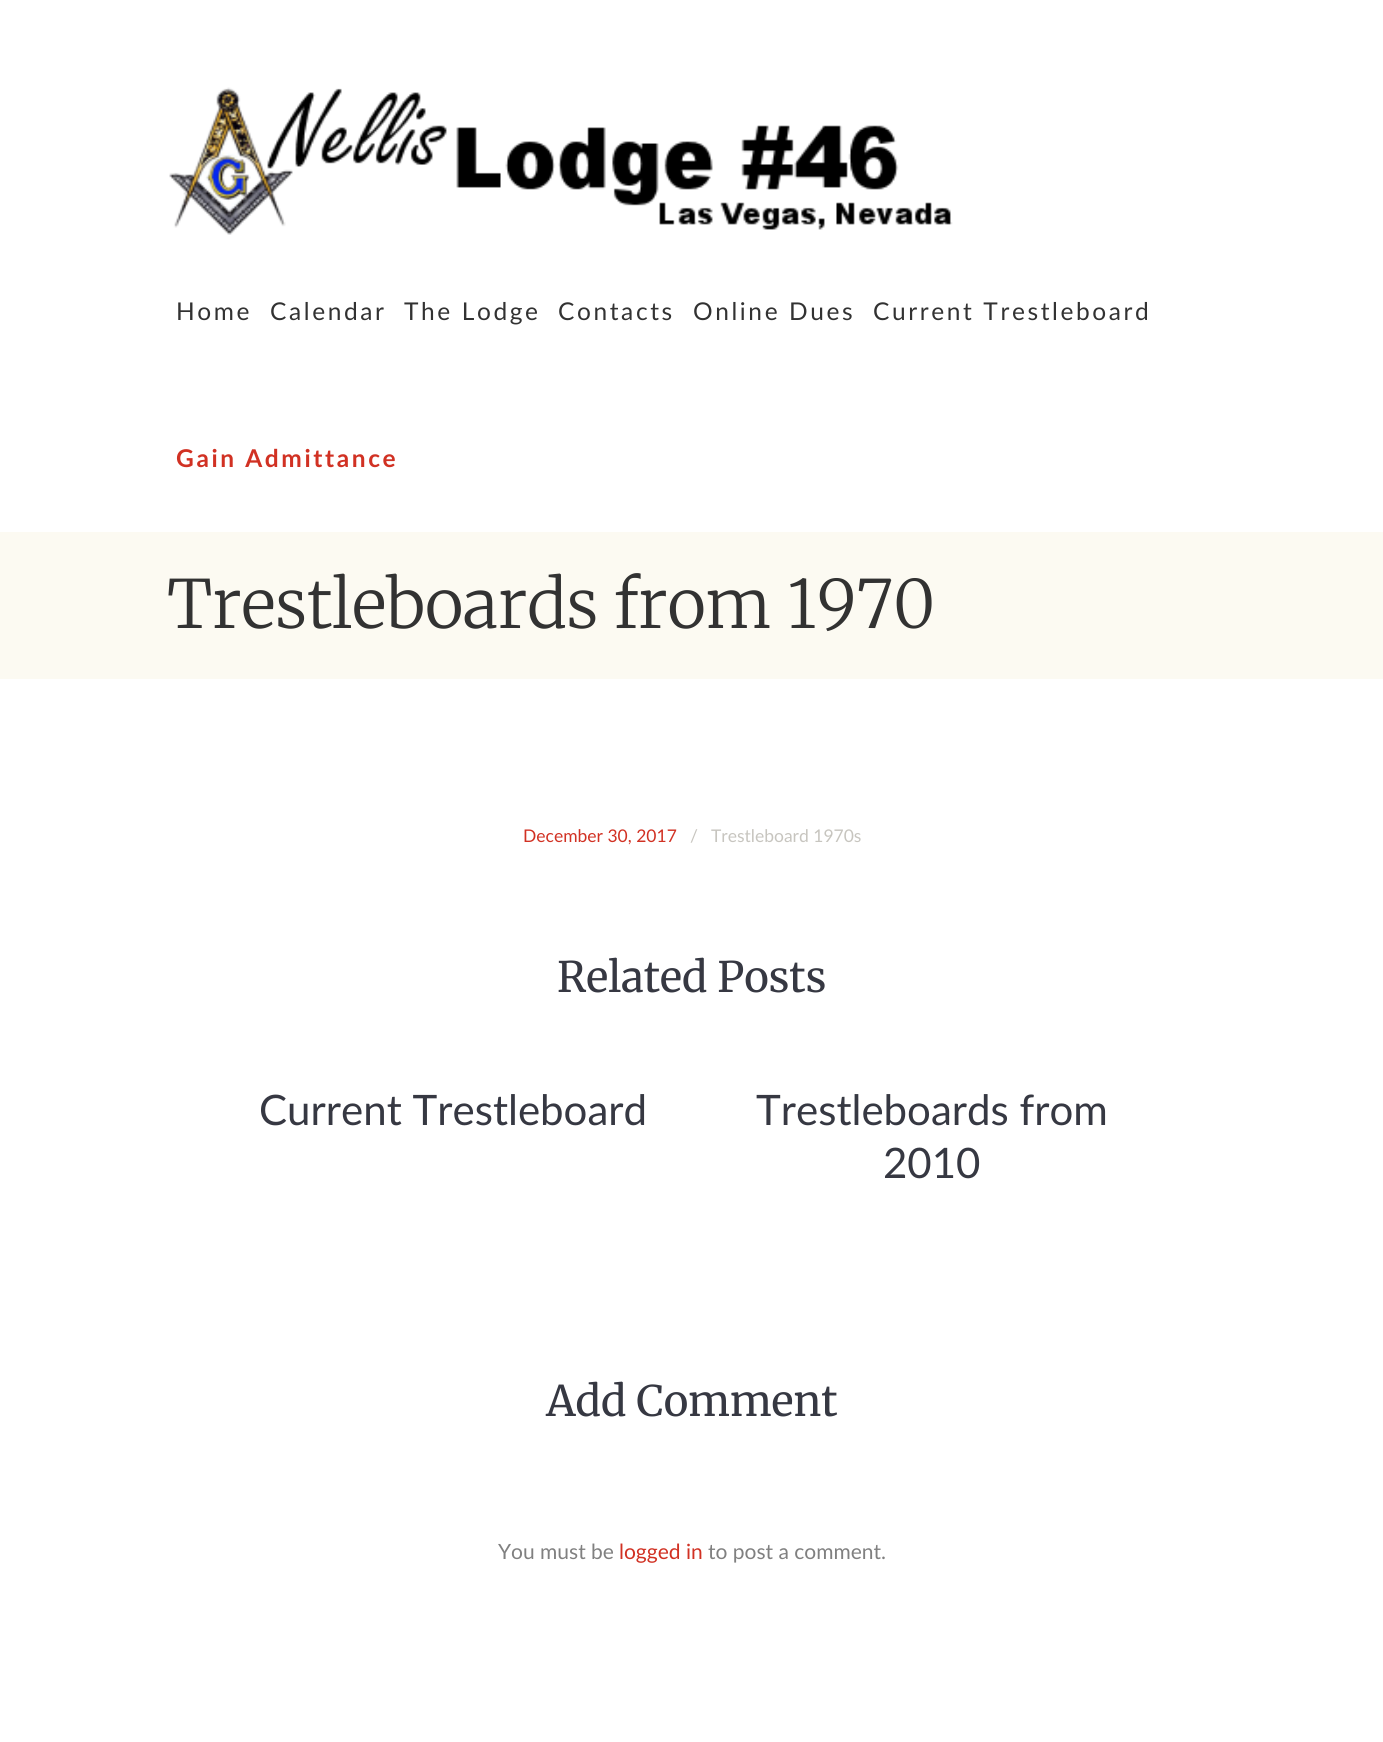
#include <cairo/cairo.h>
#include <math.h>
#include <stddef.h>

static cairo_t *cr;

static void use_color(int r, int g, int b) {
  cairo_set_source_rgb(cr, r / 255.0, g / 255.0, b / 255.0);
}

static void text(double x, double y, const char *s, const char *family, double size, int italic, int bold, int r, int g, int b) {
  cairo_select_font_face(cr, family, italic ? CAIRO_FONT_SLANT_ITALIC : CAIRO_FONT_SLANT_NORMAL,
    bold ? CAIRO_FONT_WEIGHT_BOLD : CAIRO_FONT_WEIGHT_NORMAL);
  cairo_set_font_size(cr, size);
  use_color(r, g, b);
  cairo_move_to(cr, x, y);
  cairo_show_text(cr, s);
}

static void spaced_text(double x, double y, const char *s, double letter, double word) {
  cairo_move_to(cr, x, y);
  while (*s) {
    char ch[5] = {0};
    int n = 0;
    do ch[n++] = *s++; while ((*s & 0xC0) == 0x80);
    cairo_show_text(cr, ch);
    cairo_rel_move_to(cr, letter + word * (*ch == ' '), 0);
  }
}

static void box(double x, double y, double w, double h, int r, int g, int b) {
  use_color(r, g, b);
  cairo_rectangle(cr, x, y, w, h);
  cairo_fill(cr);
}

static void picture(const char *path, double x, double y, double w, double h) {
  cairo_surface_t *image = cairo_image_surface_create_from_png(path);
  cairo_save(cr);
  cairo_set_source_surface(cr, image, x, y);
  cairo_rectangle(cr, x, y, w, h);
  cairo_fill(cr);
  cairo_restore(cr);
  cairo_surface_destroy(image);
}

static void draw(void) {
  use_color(255, 255, 255);
  cairo_paint(cr);
  picture("img_01.png", 169, 87, 784, 148);
  box(0, 532, 1383, 147, 252, 250, 242);
  cairo_select_font_face(cr, "Lato", CAIRO_FONT_SLANT_NORMAL, CAIRO_FONT_WEIGHT_NORMAL);
  cairo_set_font_size(cr, 24.5);
  use_color(50, 50, 50);
  spaced_text(176, 320, "Home", 2.6, 0);
  spaced_text(270, 320, "Calendar", 2.6, 0);
  spaced_text(404, 320, "The Lodge", 2.6, 0);
  spaced_text(558, 320, "Contacts", 2.6, 0);
  spaced_text(693, 320, "Online Dues", 2.6, 0);
  spaced_text(873, 320, "Current Trestleboard", 2.6, 0);
  cairo_select_font_face(cr, "Lato", CAIRO_FONT_SLANT_NORMAL, CAIRO_FONT_WEIGHT_BOLD);
  use_color(209, 49, 35);
  spaced_text(176, 467, "Gain Admittance", 2.6, 0);
  text(167, 628, "Trestleboards from 1970", "Merriweather Light", 66.5, 0, 0, 50, 50, 50);
  text(523, 842, "December 30, 2017", "Lato", 17.5, 0, 0, 209, 49, 35);
  text(690, 842, "/", "Lato", 17.5, 0, 0, 199, 197, 191);
  text(711, 842, "Trestleboard 1970s", "Lato", 17.5, 0, 0, 199, 197, 191);
  text(557, 992, "Related Posts", "Merriweather", 42, 0, 0, 54, 56, 66);
  text(259, 1125, "Current Trestleboard", "Lato", 42, 0, 0, 54, 56, 66);
  text(756, 1125, "Trestleboards from", "Lato", 42, 0, 0, 54, 56, 66);
  text(883, 1178, "2010", "Lato", 42, 0, 0, 54, 56, 66);
  text(546, 1416, "Add Comment", "Merriweather", 42, 0, 0, 54, 56, 66);
  text(498, 1559, "You must be", "Lato", 21, 0, 0, 128, 128, 128);
  text(619, 1559, "logged in", "Lato", 21, 0, 0, 209, 49, 35);
  text(708, 1559, "to post a comment.", "Lato", 21, 0, 0, 128, 128, 128);
}

int main(void) {
  cairo_surface_t *surface = cairo_image_surface_create(CAIRO_FORMAT_RGB24, 1383, 1742);
  cr = cairo_create(surface);
  cairo_font_options_t *options = cairo_font_options_create();
  cairo_font_options_set_hint_metrics(options, CAIRO_HINT_METRICS_OFF);
  cairo_font_options_set_hint_style(options, CAIRO_HINT_STYLE_NONE);
  cairo_set_font_options(cr, options);
  cairo_set_miter_limit(cr, 4);
  draw();
  cairo_surface_write_to_png(surface, "out.png");
  cairo_font_options_destroy(options);
  cairo_destroy(cr);
  cairo_surface_destroy(surface);
  return 0;
}
